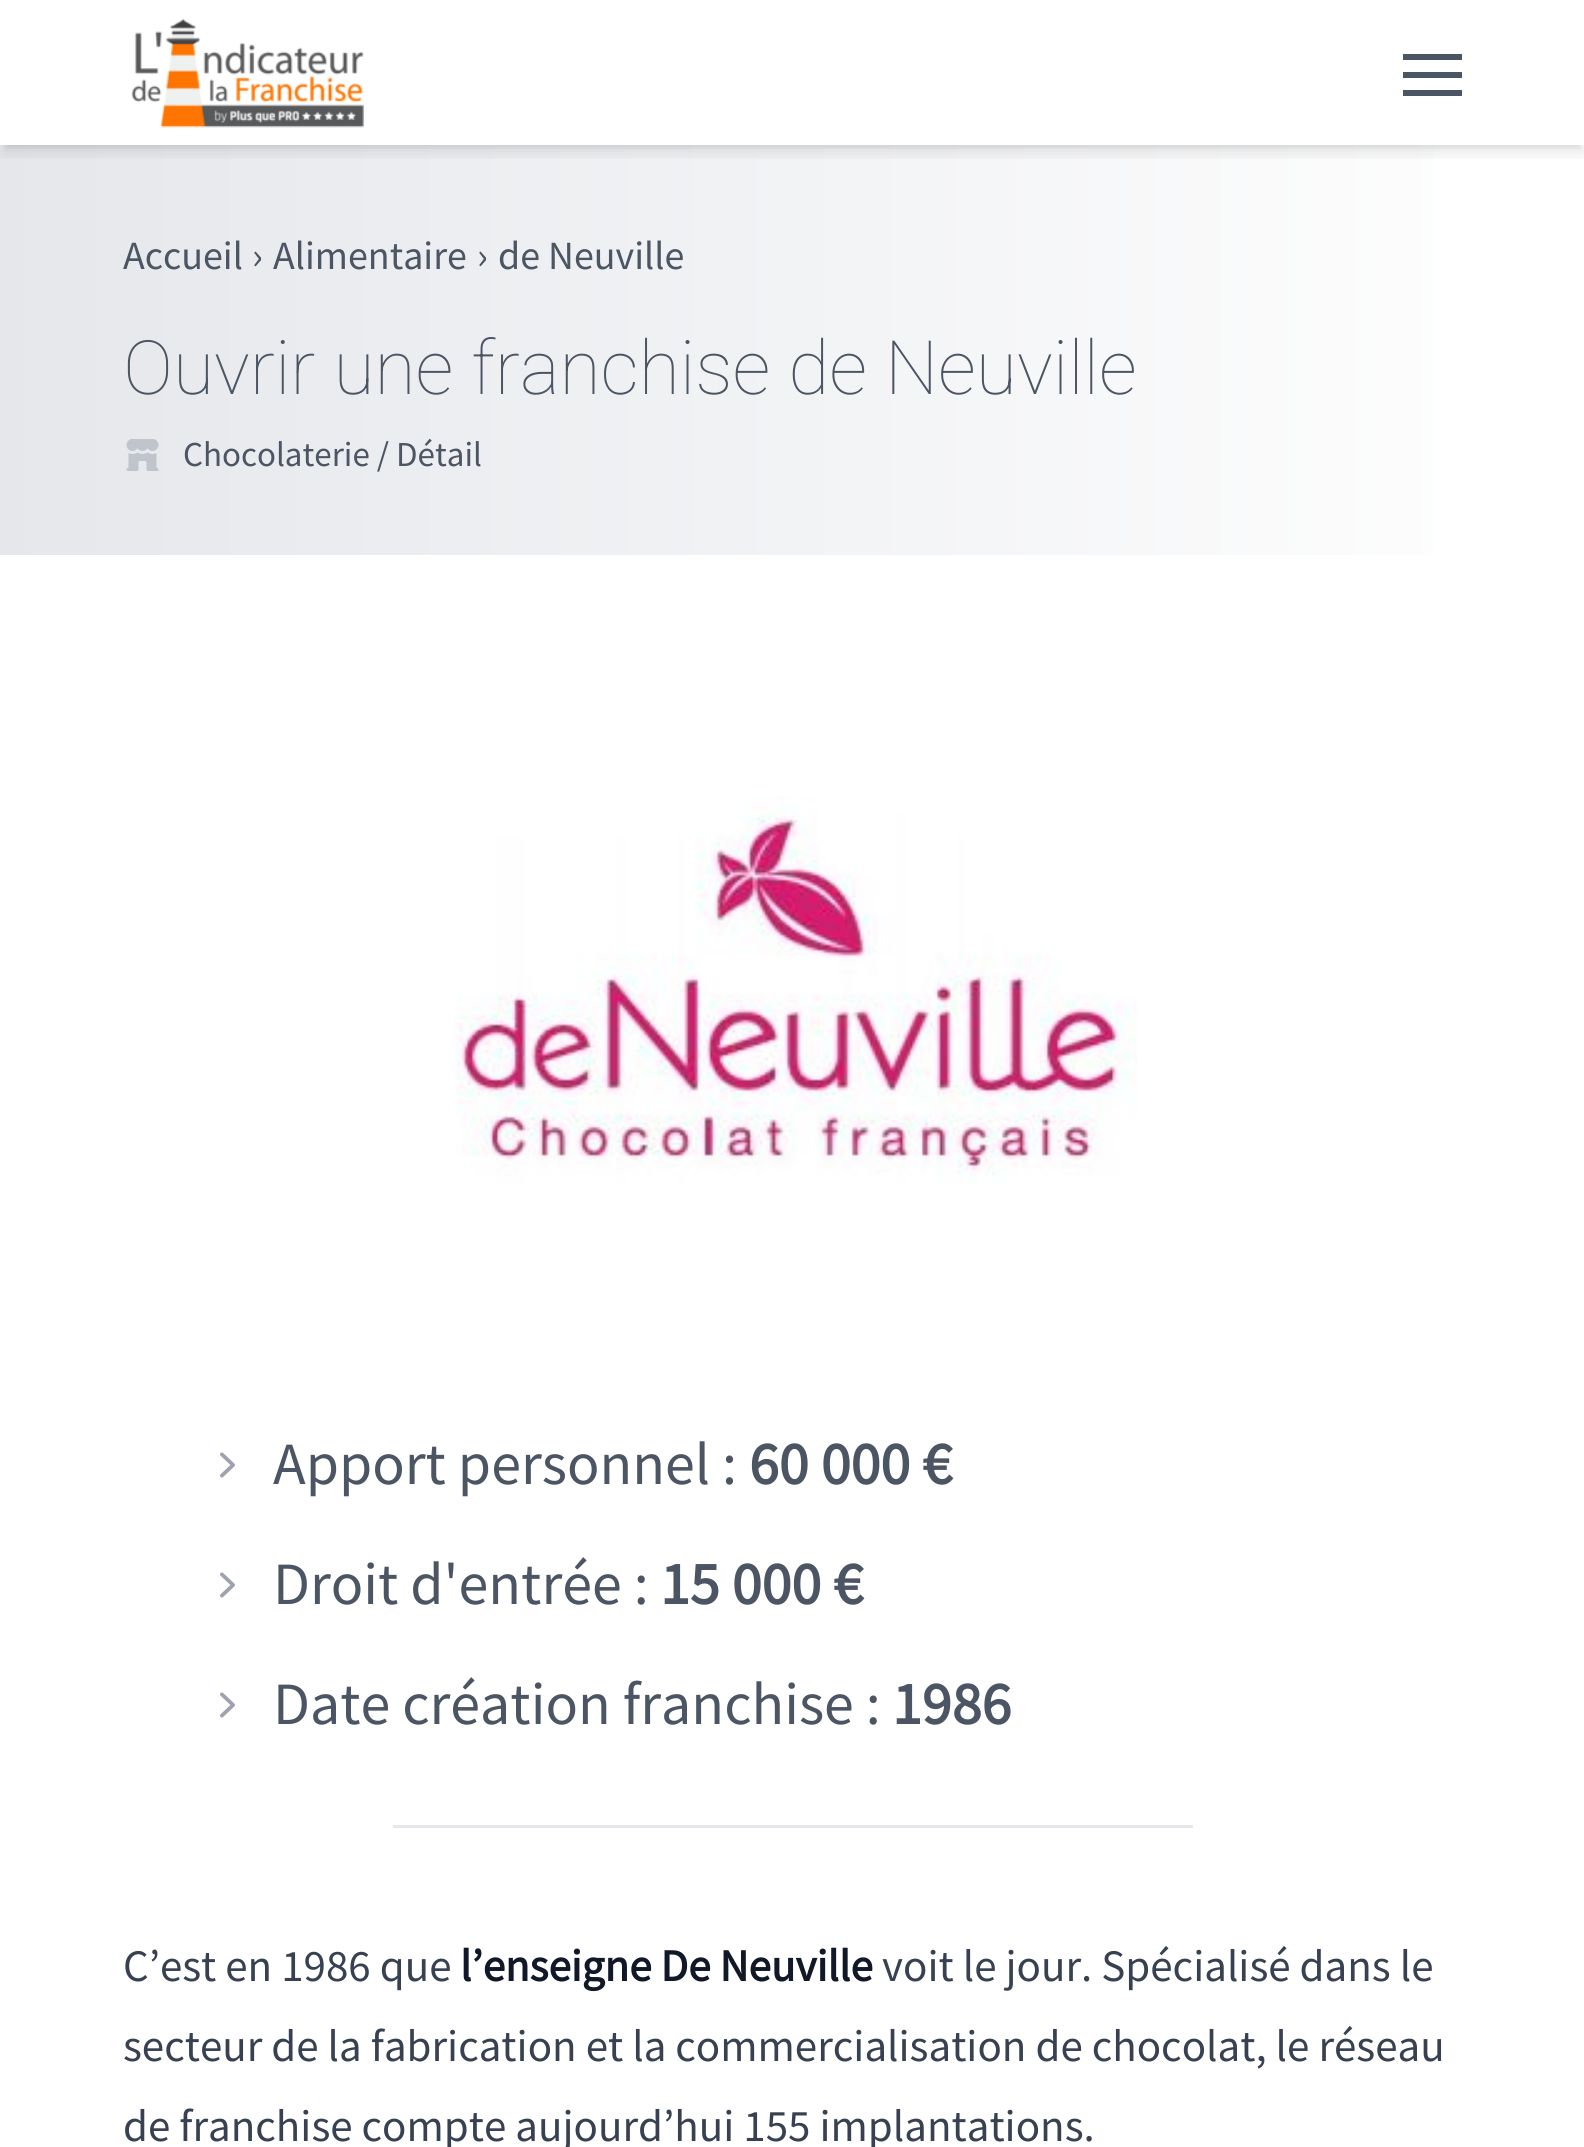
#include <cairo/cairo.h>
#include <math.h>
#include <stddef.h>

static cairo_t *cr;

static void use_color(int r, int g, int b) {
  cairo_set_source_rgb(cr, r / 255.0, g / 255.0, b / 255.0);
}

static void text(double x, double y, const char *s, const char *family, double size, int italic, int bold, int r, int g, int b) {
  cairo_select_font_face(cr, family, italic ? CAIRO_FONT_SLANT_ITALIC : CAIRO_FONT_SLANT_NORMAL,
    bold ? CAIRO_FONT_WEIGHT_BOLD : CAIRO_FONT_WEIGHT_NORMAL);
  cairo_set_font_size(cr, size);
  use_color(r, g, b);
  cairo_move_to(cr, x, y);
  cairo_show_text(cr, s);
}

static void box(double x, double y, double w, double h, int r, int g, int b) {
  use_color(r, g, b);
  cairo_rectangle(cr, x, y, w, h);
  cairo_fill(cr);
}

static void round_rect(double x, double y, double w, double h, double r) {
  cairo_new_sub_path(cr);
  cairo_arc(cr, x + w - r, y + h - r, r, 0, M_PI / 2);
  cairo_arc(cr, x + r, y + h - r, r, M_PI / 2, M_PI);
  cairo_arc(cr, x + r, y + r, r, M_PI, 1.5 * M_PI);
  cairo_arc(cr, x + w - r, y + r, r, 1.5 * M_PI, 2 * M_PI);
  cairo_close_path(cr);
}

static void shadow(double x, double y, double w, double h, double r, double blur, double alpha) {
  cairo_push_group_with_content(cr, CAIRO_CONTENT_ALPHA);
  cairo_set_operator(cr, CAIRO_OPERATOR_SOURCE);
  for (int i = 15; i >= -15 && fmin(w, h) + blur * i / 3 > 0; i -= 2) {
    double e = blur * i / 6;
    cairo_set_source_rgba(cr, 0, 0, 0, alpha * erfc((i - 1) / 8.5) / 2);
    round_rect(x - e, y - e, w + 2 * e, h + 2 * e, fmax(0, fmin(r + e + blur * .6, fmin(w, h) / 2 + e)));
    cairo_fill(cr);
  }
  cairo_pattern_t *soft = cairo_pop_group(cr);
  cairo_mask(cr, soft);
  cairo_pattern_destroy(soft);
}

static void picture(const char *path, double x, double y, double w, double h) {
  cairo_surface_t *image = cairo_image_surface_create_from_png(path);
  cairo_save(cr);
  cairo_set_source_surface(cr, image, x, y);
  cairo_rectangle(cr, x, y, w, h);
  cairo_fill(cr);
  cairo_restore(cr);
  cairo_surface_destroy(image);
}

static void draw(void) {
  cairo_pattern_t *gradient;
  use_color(255, 255, 255);
  cairo_paint(cr);
  gradient = cairo_pattern_create_linear(0, 215, 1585, 215);
  cairo_pattern_add_color_stop_rgba(gradient, 0, 0.898, 0.906, 0.922, 1);
  cairo_pattern_add_color_stop_rgba(gradient, 1, 1, 1, 1, 1);
  cairo_set_source(cr, gradient);
  cairo_pattern_destroy(gradient);
  cairo_rectangle(cr, 0, 145, 1433, 140);
  cairo_fill(cr);
  cairo_save(cr);
  cairo_rectangle(cr, 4, 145, 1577, 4);
  cairo_clip(cr);
  use_color(0, 0, 0);
  shadow(5, 10, 1575, 135, 0, 5, 0.1);
  cairo_restore(cr);
  cairo_save(cr);
  cairo_rectangle(cr, 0, 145, 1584, 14);
  cairo_clip(cr);
  use_color(0, 0, 0);
  shadow(3, 13, 1580, 140, 0, 7.5, 0.1);
  cairo_restore(cr);
  picture("img_01.png", 131, 18, 233, 110);
  cairo_save(cr);
  cairo_rectangle(cr, 1403, 45, 60, 60);
  cairo_clip(cr);
  use_color(75, 85, 99);
  cairo_set_fill_rule(cr, CAIRO_FILL_RULE_EVEN_ODD);
  cairo_new_path(cr);
  cairo_move_to(cr, 1402, 54);
  cairo_line_to(cr, 1462, 54);
  cairo_line_to(cr, 1462, 60);
  cairo_line_to(cr, 1402, 60);
  cairo_close_path(cr);
  cairo_move_to(cr, 1402, 72);
  cairo_line_to(cr, 1462, 72);
  cairo_line_to(cr, 1462, 78);
  cairo_line_to(cr, 1402, 78);
  cairo_close_path(cr);
  cairo_move_to(cr, 1402, 90);
  cairo_line_to(cr, 1462, 90);
  cairo_line_to(cr, 1462, 96);
  cairo_line_to(cr, 1402, 96);
  cairo_close_path(cr);
  cairo_fill(cr);
  cairo_restore(cr);
  gradient = cairo_pattern_create_linear(0, 420, 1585, 420);
  cairo_pattern_add_color_stop_rgba(gradient, 0, 0.898, 0.906, 0.922, 1);
  cairo_pattern_add_color_stop_rgba(gradient, 1, 1, 1, 1, 1);
  cairo_set_source(cr, gradient);
  cairo_pattern_destroy(gradient);
  cairo_rectangle(cr, 0, 285, 1433, 270);
  cairo_fill(cr);
  picture("img_02.png", 126, 439, 33, 32);
  picture("img_03.png", 455, 796, 683, 388);
  picture("img_04.png", 220, 1452, 15, 26);
  picture("img_04.png", 220, 1572, 15, 26);
  picture("img_04.png", 220, 1692, 15, 26);
  box(393, 1825, 800, 3, 229, 231, 235);
  text(123, 269, "Accueil", "Source Sans Pro", 40, 0, 0, 75, 85, 99);
  text(252, 269, "›", "Source Sans Pro", 40, 0, 0, 75, 85, 99);
  text(273, 269, "Alimentaire", "Source Sans Pro", 40, 0, 0, 75, 85, 99);
  text(477, 269, "›", "Source Sans Pro", 40, 0, 0, 75, 85, 99);
  text(498, 269, "de Neuville", "Source Sans Pro", 40, 0, 0, 75, 85, 99);
  text(123, 394, "Ouvrir une franchise de Neuville", "Roboto Thin", 75, 0, 0, 75, 85, 99);
  text(183, 466, "Chocolaterie / Détail", "Source Sans Pro", 35, 0, 0, 75, 85, 99);
  text(273, 1484, "Apport personnel :", "Source Sans Pro", 60, 0, 0, 75, 85, 99);
  text(749, 1484, "60 000 €", "Source Sans Pro", 60, 0, 1, 75, 85, 99);
  text(273, 1604, "Droit d'entrée :", "Source Sans Pro", 60, 0, 0, 75, 85, 99);
  text(660, 1604, "15 000 €", "Source Sans Pro", 60, 0, 1, 75, 85, 99);
  text(273, 1724, "Date création franchise :", "Source Sans Pro", 60, 0, 0, 75, 85, 99);
  text(892, 1724, "1986", "Source Sans Pro", 60, 0, 1, 75, 85, 99);
  text(123, 1981, "C’est en 1986 que", "Source Sans Pro", 45, 0, 0, 55, 65, 81);
  text(460, 1981, "l’enseigne De Neuville", "Source Sans Pro", 45, 0, 1, 17, 24, 39);
  text(882, 1981, "voit le jour. Spécialisé dans le", "Source Sans Pro", 45, 0, 0, 55, 65, 81);
  text(123, 2061, "secteur de la fabrication et la commercialisation de chocolat, le réseau", "Source Sans Pro", 45, 0, 0, 55, 65, 81);
  text(123, 2141, "de franchise compte aujourd’hui 155 implantations.", "Source Sans Pro", 45, 0, 0, 55, 65, 81);
}

int main(void) {
  cairo_surface_t *surface = cairo_image_surface_create(CAIRO_FORMAT_RGB24, 1584, 2147);
  cr = cairo_create(surface);
  cairo_font_options_t *options = cairo_font_options_create();
  cairo_font_options_set_hint_metrics(options, CAIRO_HINT_METRICS_OFF);
  cairo_font_options_set_hint_style(options, CAIRO_HINT_STYLE_NONE);
  cairo_set_font_options(cr, options);
  cairo_set_miter_limit(cr, 4);
  draw();
  cairo_surface_write_to_png(surface, "out.png");
  cairo_font_options_destroy(options);
  cairo_destroy(cr);
  cairo_surface_destroy(surface);
  return 0;
}
